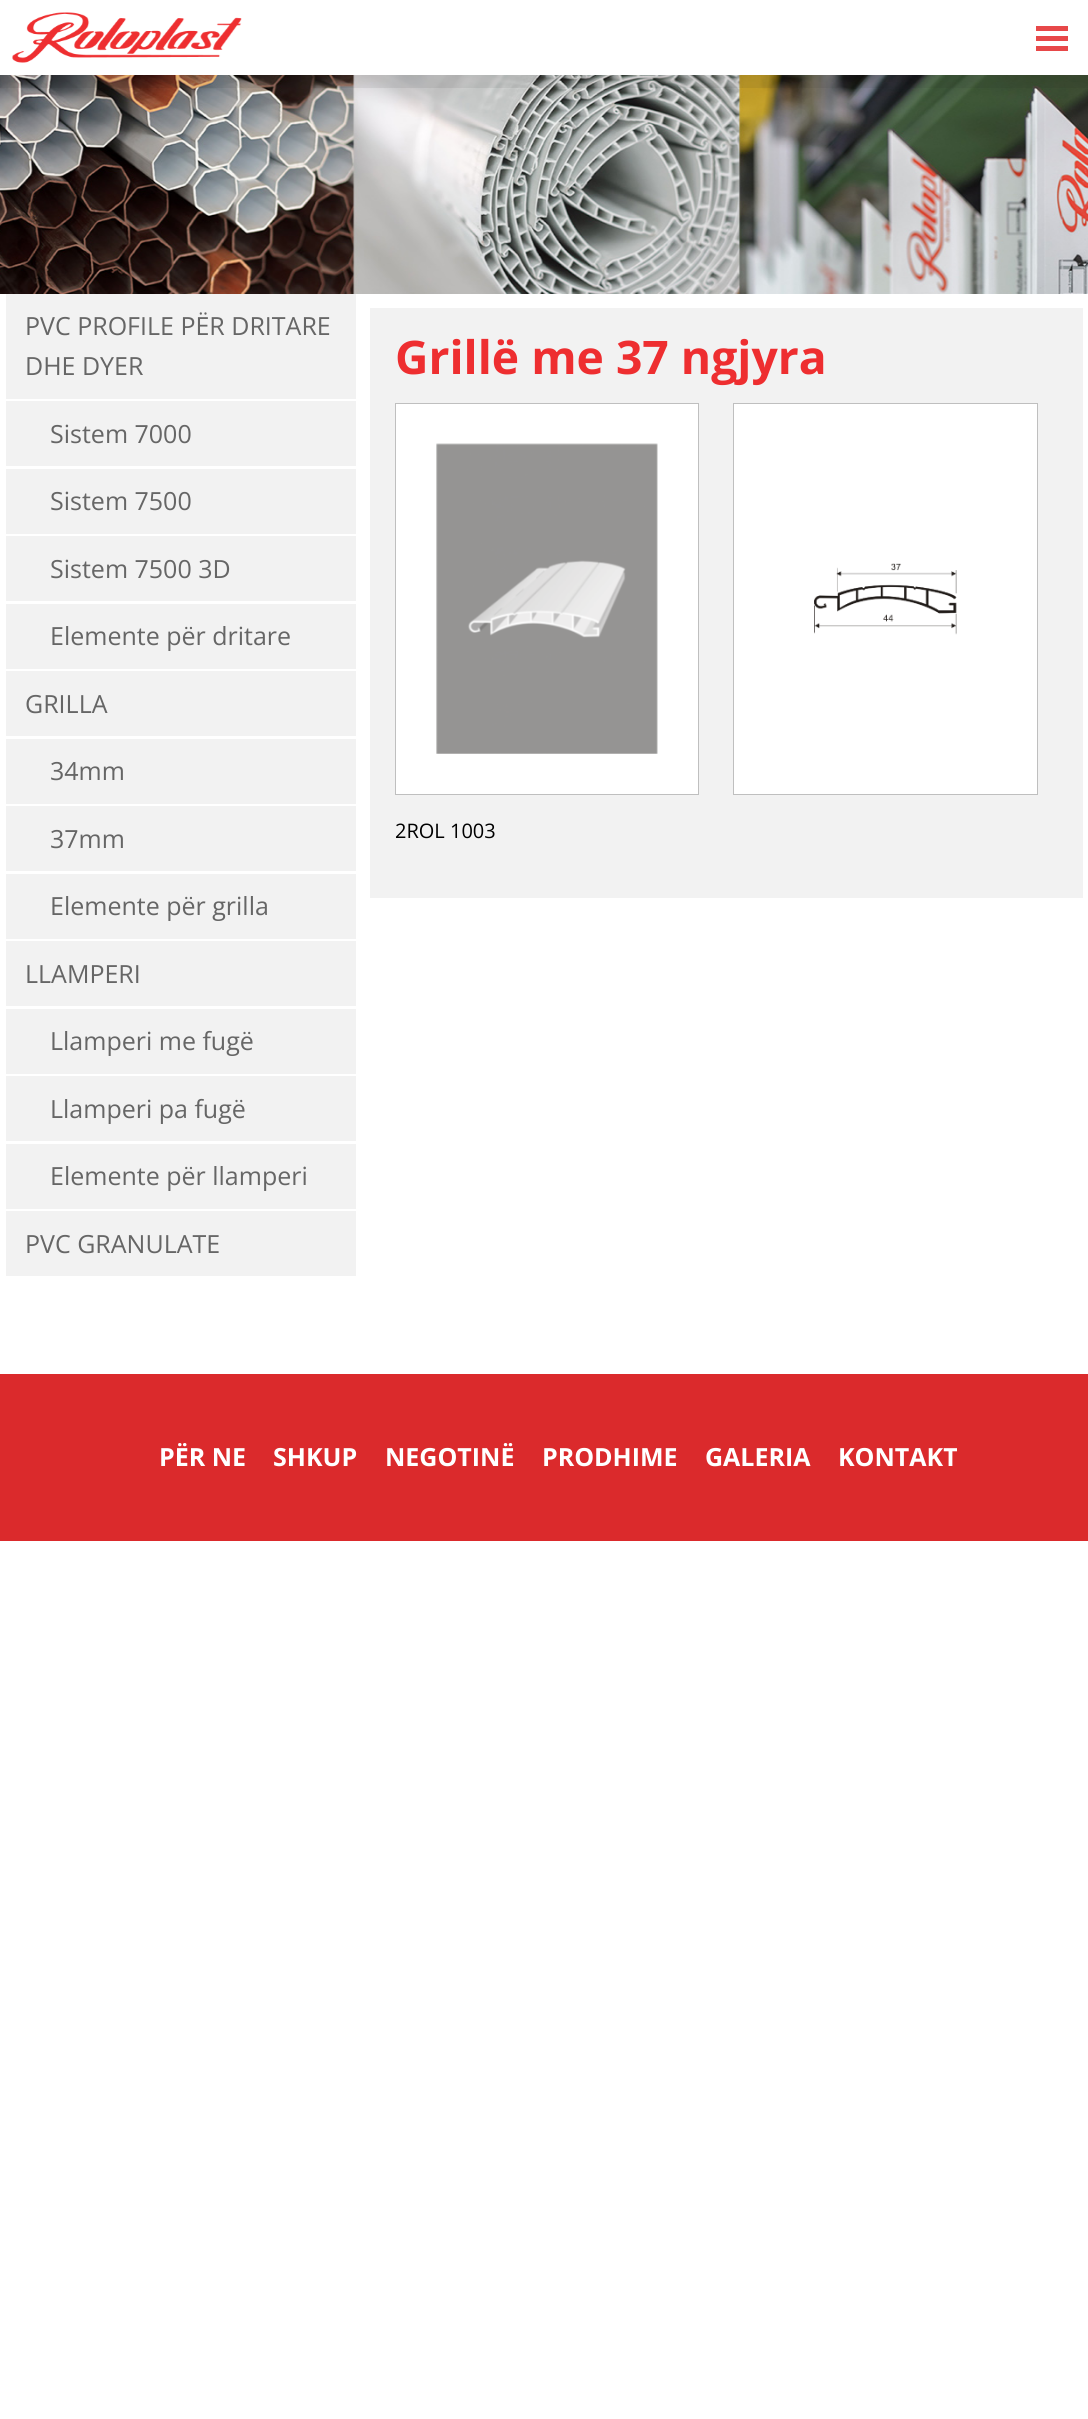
#include <cairo/cairo.h>
#include <math.h>
#include <stddef.h>

static cairo_t *cr;

static void use_color(int r, int g, int b) {
  cairo_set_source_rgb(cr, r / 255.0, g / 255.0, b / 255.0);
}

static void text(double x, double y, const char *s, const char *family, double size, int italic, int bold, int r, int g, int b) {
  cairo_select_font_face(cr, family, italic ? CAIRO_FONT_SLANT_ITALIC : CAIRO_FONT_SLANT_NORMAL,
    bold ? CAIRO_FONT_WEIGHT_BOLD : CAIRO_FONT_WEIGHT_NORMAL);
  cairo_set_font_size(cr, size);
  use_color(r, g, b);
  cairo_move_to(cr, x, y);
  cairo_show_text(cr, s);
}

static void box(double x, double y, double w, double h, int r, int g, int b) {
  use_color(r, g, b);
  cairo_rectangle(cr, x, y, w, h);
  cairo_fill(cr);
}

static void picture(const char *path, double x, double y, double w, double h) {
  cairo_surface_t *image = cairo_image_surface_create_from_png(path);
  cairo_save(cr);
  cairo_set_source_surface(cr, image, x, y);
  cairo_rectangle(cr, x, y, w, h);
  cairo_fill(cr);
  cairo_restore(cr);
  cairo_surface_destroy(image);
}

static void draw(void) {
  use_color(255, 255, 255);
  cairo_paint(cr);
  picture("img_02.png", 0, 75, 1088, 219);
  cairo_set_source_rgba(cr, 0.145, 0.145, 0.145, 0.08);
  cairo_new_path(cr);
  cairo_move_to(cr, 0, 75);
  cairo_line_to(cr, 0, 88);
  cairo_line_to(cr, 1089, 88);
  cairo_line_to(cr, 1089, 13);
  cairo_line_to(cr, 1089, 75);
  cairo_close_path(cr);
  cairo_fill(cr);
  picture("img_01.png", 12, 12, 230, 51);
  box(1036, 46, 32, 5, 231, 72, 73);
  box(1036, 36, 32, 5, 231, 72, 73);
  box(1036, 26, 32, 5, 231, 72, 73);
  box(6, 294, 350, 105, 242, 242, 242);
  box(6, 401, 350, 65, 242, 242, 242);
  box(6, 469, 350, 65, 242, 242, 242);
  box(6, 536, 350, 65, 242, 242, 242);
  box(6, 604, 350, 65, 242, 242, 242);
  box(6, 671, 350, 65, 242, 242, 242);
  box(6, 739, 350, 65, 242, 242, 242);
  box(6, 806, 350, 65, 242, 242, 242);
  box(6, 874, 350, 65, 242, 242, 242);
  box(6, 941, 350, 65, 242, 242, 242);
  box(6, 1009, 350, 65, 242, 242, 242);
  box(6, 1076, 350, 65, 242, 242, 242);
  box(6, 1144, 350, 65, 242, 242, 242);
  box(6, 1211, 350, 65, 242, 242, 242);
  box(370, 308, 713, 590, 242, 242, 242);
  use_color(255, 255, 255);
  cairo_rectangle(cr, 395.5, 403.5, 303, 391);
  cairo_fill_preserve(cr);
  use_color(191, 191, 191);
  cairo_set_line_width(cr, 1);
  cairo_stroke(cr);
  picture("img_03.png", 436, 443, 222, 311);
  use_color(255, 255, 255);
  cairo_rectangle(cr, 733.5, 403.5, 304, 391);
  cairo_fill_preserve(cr);
  use_color(191, 191, 191);
  cairo_stroke(cr);
  picture("img_04.png", 814, 563, 143, 72);
  box(0, 1374, 1088, 167, 219, 42, 44);
  text(25, 335, "PVC PROFILE PËR DRITARE", "Open Sans", 25, 0, 0, 102, 102, 102);
  text(25, 375, "DHE DYER", "Open Sans", 25, 0, 0, 102, 102, 102);
  text(50, 443, "Sistem 7000", "Open Sans", 25, 0, 0, 102, 102, 102);
  text(50, 510, "Sistem 7500", "Open Sans", 25, 0, 0, 102, 102, 102);
  text(50, 578, "Sistem 7500 3D", "Open Sans", 25, 0, 0, 102, 102, 102);
  text(50, 645, "Elemente për dritare", "Open Sans", 25, 0, 0, 102, 102, 102);
  text(25, 713, "GRILLA", "Open Sans", 25, 0, 0, 102, 102, 102);
  text(50, 780, "34mm", "Open Sans", 25, 0, 0, 102, 102, 102);
  text(50, 848, "37mm", "Open Sans", 25, 0, 0, 102, 102, 102);
  text(50, 915, "Elemente për grilla", "Open Sans", 25, 0, 0, 102, 102, 102);
  text(25, 983, "LLAMPERI", "Open Sans", 25, 0, 0, 102, 102, 102);
  text(50, 1050, "Llamperi me fugë", "Open Sans", 25, 0, 0, 102, 102, 102);
  text(50, 1118, "Llamperi pa fugë", "Open Sans", 25, 0, 0, 102, 102, 102);
  text(50, 1185, "Elemente për llamperi", "Open Sans", 25, 0, 0, 102, 102, 102);
  text(25, 1253, "PVC GRANULATE", "Open Sans", 25, 0, 0, 102, 102, 102);
  text(395, 374, "Grillë me 37 ngjyra", "Open Sans", 46.25, 0, 1, 238, 46, 48);
  text(395, 838, "2ROL 1003", "Open Sans", 20, 0, 0, 0, 0, 0);
  text(159, 1466, "PËR NE", "Open Sans", 25, 0, 1, 255, 255, 255);
  text(273, 1466, "SHKUP", "Open Sans", 25, 0, 1, 255, 255, 255);
  text(385, 1466, "NEGOTINË", "Open Sans", 25, 0, 1, 255, 255, 255);
  text(542, 1466, "PRODHIME", "Open Sans", 25, 0, 1, 255, 255, 255);
  text(705, 1466, "GALERIA", "Open Sans", 25, 0, 1, 255, 255, 255);
  text(838, 1466, "KONTAKT", "Open Sans", 25, 0, 1, 255, 255, 255);
}

int main(void) {
  cairo_surface_t *surface = cairo_image_surface_create(CAIRO_FORMAT_RGB24, 1088, 2419);
  cr = cairo_create(surface);
  cairo_font_options_t *options = cairo_font_options_create();
  cairo_font_options_set_hint_metrics(options, CAIRO_HINT_METRICS_OFF);
  cairo_font_options_set_hint_style(options, CAIRO_HINT_STYLE_NONE);
  cairo_set_font_options(cr, options);
  cairo_set_miter_limit(cr, 4);
  draw();
  cairo_surface_write_to_png(surface, "out.png");
  cairo_font_options_destroy(options);
  cairo_destroy(cr);
  cairo_surface_destroy(surface);
  return 0;
}
